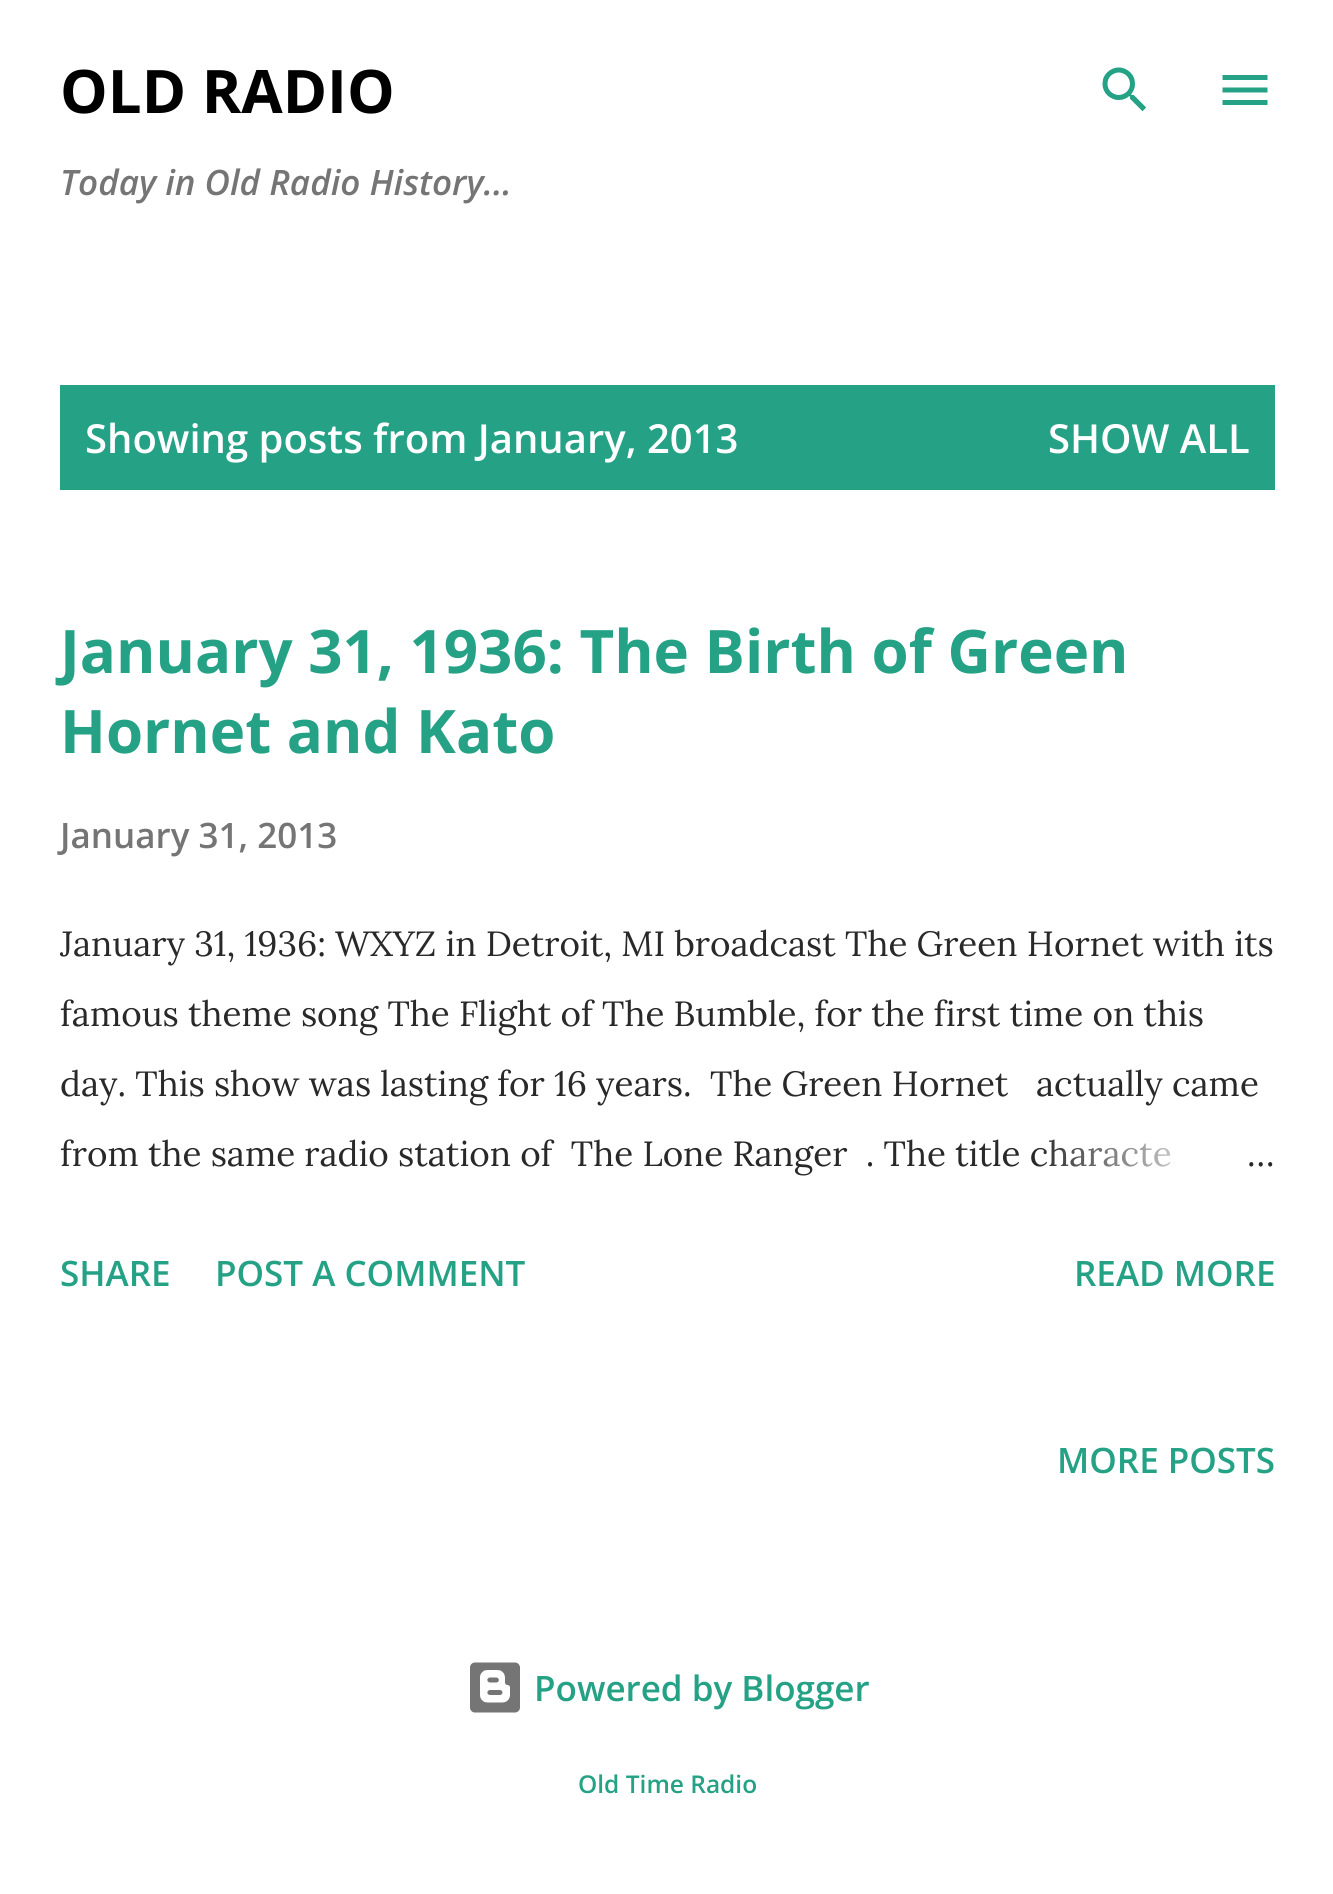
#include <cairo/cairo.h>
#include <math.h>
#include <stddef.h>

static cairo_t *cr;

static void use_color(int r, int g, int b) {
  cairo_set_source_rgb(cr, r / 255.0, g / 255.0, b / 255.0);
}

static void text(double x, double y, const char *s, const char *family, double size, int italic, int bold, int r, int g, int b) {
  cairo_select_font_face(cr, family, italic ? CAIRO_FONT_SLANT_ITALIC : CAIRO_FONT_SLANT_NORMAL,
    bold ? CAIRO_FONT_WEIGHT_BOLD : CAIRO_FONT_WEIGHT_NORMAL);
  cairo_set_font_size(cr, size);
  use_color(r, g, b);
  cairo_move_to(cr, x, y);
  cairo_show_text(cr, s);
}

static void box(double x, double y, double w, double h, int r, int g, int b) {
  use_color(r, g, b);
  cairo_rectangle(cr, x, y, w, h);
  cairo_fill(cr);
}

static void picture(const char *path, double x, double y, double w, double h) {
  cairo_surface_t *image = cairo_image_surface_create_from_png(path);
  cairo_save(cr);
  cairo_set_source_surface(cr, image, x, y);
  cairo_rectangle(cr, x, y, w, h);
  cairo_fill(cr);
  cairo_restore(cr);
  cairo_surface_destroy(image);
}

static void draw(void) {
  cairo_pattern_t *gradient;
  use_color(255, 255, 255);
  cairo_paint(cr);
  picture("img_01.png", 1102, 67, 45, 45);
  picture("img_02.png", 1222, 75, 46, 30);
  box(60, 385, 1215, 105, 37, 161, 134);
  picture("img_03.png", 470, 1662, 50, 51);
  text(60, 113, "OLD RADIO", "Open Sans", 60, 0, 1, 0, 0, 0);
  text(60, 195, "Today in Old Radio History...", "Open Sans SemiBold", 35, 1, 0, 117, 117, 117);
  text(85, 453, "Showing posts from January, 2013", "Open Sans SemiBold", 40, 0, 0, 255, 255, 255);
  text(1048, 453, "SHOW ALL", "Open Sans SemiBold", 40, 0, 0, 255, 255, 255);
  text(60, 673, "January 31, 1936: The Birth of Green", "Open Sans", 60, 0, 1, 37, 161, 134);
  text(60, 753, "Hornet and Kato", "Open Sans", 60, 0, 1, 37, 161, 134);
  text(60, 848, "January 31, 2013", "Open Sans SemiBold", 35, 0, 0, 117, 117, 117);
  text(60, 956, "January 31, 1936: WXYZ in Detroit, MI broadcast The Green Hornet with its", "Lora", 35, 0, 0, 41, 41, 41);
  text(60, 1026, "famous theme song The Flight of The Bumble, for the first time on this", "Lora", 35, 0, 0, 41, 41, 41);
  text(60, 1096, "day. This show was lasting for 16 years.  The Green Hornet   actually came", "Lora", 35, 0, 0, 41, 41, 41);
  text(60, 1166, "from the same radio station of  The Lone Ranger  . The title characte", "Lora", 35, 0, 0, 41, 41, 41);
  gradient = cairo_pattern_create_linear(1275, 1153, 1035, 1153);
  cairo_pattern_add_color_stop_rgba(gradient, 0, 1, 1, 1, 1);
  cairo_pattern_add_color_stop_rgba(gradient, 0.2, 1, 1, 1, 1);
  cairo_pattern_add_color_stop_rgba(gradient, 1, 1, 1, 1, 0);
  cairo_set_source(cr, gradient);
  cairo_pattern_destroy(gradient);
  cairo_rectangle(cr, 1039, 1139, 132, 28);
  cairo_fill(cr);
  text(1247, 1166, "…", "Lora", 35, 0, 0, 41, 41, 41);
  text(60, 1286, "SHARE", "Open Sans SemiBold", 35, 0, 0, 37, 161, 134);
  text(215, 1286, "POST A COMMENT", "Open Sans SemiBold", 35, 0, 0, 37, 161, 134);
  text(1074, 1286, "READ MORE", "Open Sans SemiBold", 35, 0, 0, 37, 161, 134);
  text(1057, 1473, "MORE POSTS", "Open Sans SemiBold", 35, 0, 0, 37, 161, 134);
  text(534, 1701, "Powered by Blogger", "Open Sans SemiBold", 35, 0, 0, 37, 161, 134);
  text(578, 1793, "Old Time Radio", "Open Sans SemiBold", 24.5, 0, 0, 37, 161, 134);
}

int main(void) {
  cairo_surface_t *surface = cairo_image_surface_create(CAIRO_FORMAT_RGB24, 1333, 1894);
  cr = cairo_create(surface);
  cairo_font_options_t *options = cairo_font_options_create();
  cairo_font_options_set_hint_metrics(options, CAIRO_HINT_METRICS_OFF);
  cairo_font_options_set_hint_style(options, CAIRO_HINT_STYLE_NONE);
  cairo_set_font_options(cr, options);
  cairo_set_miter_limit(cr, 4);
  draw();
  cairo_surface_write_to_png(surface, "out.png");
  cairo_font_options_destroy(options);
  cairo_destroy(cr);
  cairo_surface_destroy(surface);
  return 0;
}
